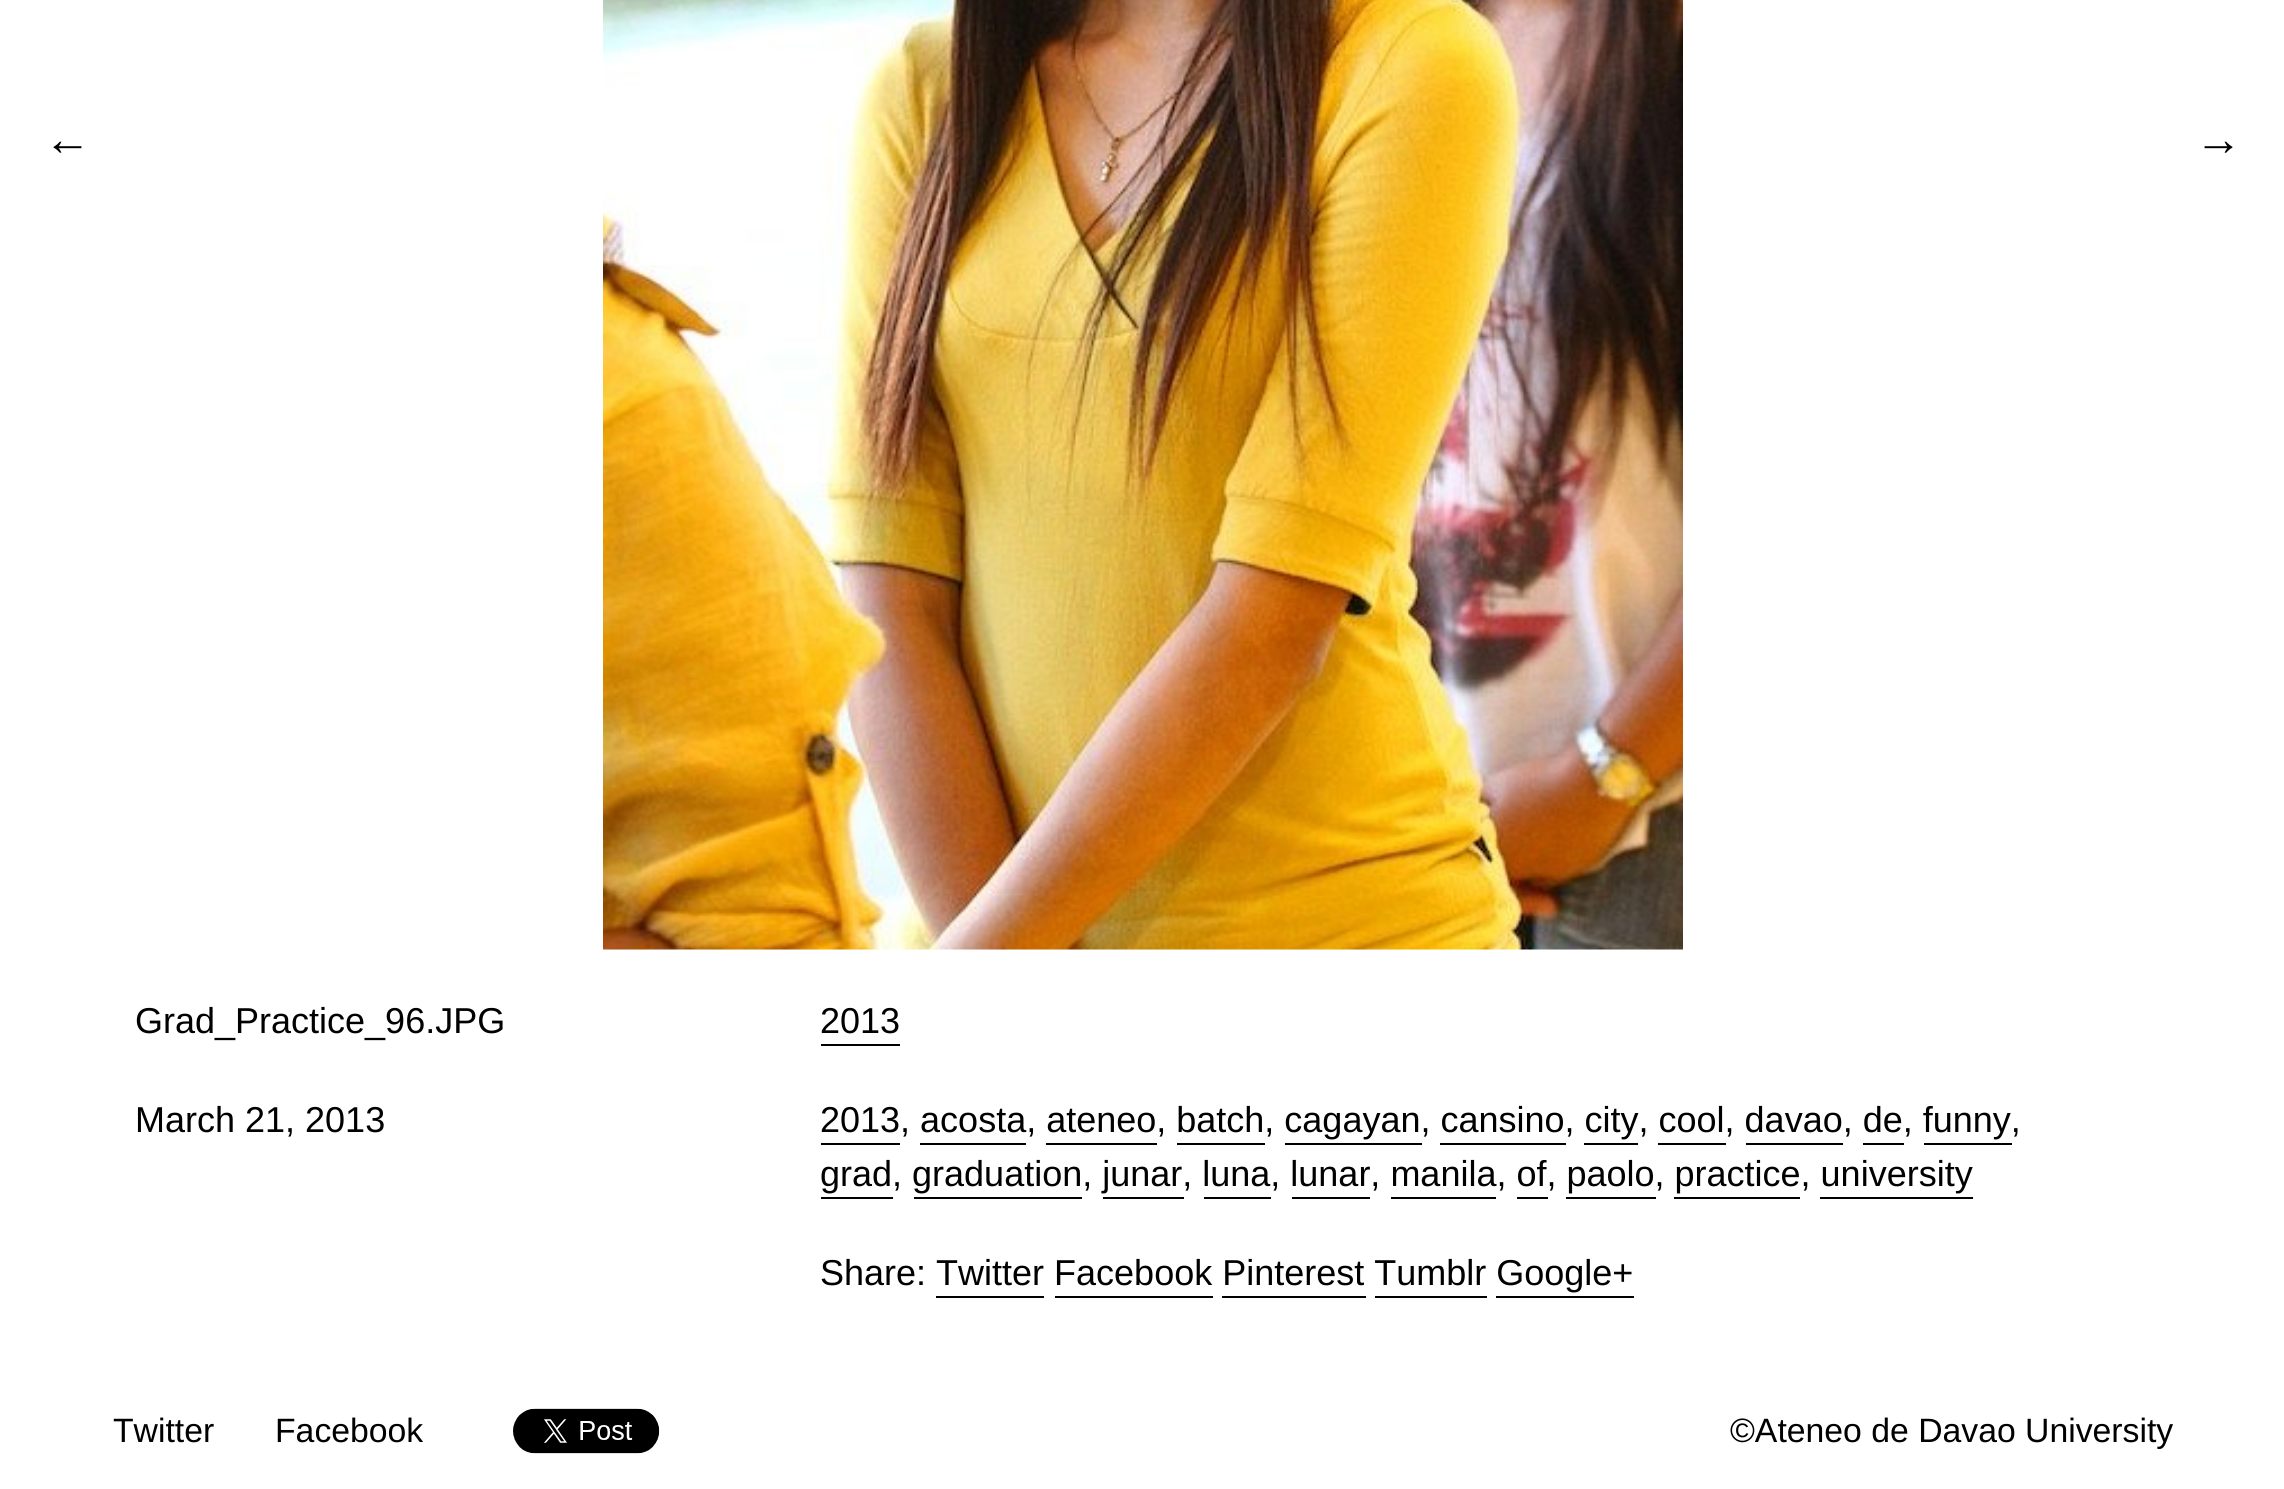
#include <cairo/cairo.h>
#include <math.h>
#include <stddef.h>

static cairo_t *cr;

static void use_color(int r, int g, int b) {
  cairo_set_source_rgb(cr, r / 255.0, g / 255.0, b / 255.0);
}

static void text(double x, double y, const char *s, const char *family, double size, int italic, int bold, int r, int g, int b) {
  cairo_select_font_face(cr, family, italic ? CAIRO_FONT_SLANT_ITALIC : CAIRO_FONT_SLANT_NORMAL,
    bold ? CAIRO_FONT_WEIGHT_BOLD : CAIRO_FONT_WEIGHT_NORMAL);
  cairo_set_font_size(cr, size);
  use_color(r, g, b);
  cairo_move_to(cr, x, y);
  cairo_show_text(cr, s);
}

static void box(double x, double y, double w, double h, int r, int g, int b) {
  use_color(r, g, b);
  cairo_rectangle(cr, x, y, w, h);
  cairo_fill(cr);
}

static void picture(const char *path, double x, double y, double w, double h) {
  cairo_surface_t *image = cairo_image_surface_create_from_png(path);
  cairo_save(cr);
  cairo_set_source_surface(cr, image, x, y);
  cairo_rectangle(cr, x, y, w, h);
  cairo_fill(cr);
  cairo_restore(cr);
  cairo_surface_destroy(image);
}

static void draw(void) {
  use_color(255, 255, 255);
  cairo_paint(cr);
  picture("img_01.png", 603, 0, 1080, 950);
  box(821, 1044, 79, 2, 0, 0, 0);
  box(821, 1143, 79, 2, 0, 0, 0);
  box(920, 1143, 106, 2, 0, 0, 0);
  box(1046, 1143, 111, 2, 0, 0, 0);
  box(1177, 1143, 88, 2, 0, 0, 0);
  box(1285, 1143, 137, 2, 0, 0, 0);
  box(1440, 1143, 126, 2, 0, 0, 0);
  box(1584, 1143, 54, 2, 0, 0, 0);
  box(1658, 1143, 68, 2, 0, 0, 0);
  box(1746, 1143, 97, 2, 0, 0, 0);
  box(1863, 1143, 41, 2, 0, 0, 0);
  box(1924, 1143, 88, 2, 0, 0, 0);
  box(821, 1197, 72, 2, 0, 0, 0);
  box(914, 1197, 168, 2, 0, 0, 0);
  box(1103, 1197, 81, 2, 0, 0, 0);
  box(1204, 1197, 67, 2, 0, 0, 0);
  box(1292, 1197, 78, 2, 0, 0, 0);
  box(1391, 1197, 105, 2, 0, 0, 0);
  box(1517, 1197, 31, 2, 0, 0, 0);
  box(1566, 1197, 90, 2, 0, 0, 0);
  box(1674, 1197, 126, 2, 0, 0, 0);
  box(1820, 1197, 153, 2, 0, 0, 0);
  box(936, 1296, 108, 2, 0, 0, 0);
  box(1055, 1296, 158, 2, 0, 0, 0);
  box(1222, 1296, 144, 2, 0, 0, 0);
  box(1375, 1296, 112, 2, 0, 0, 0);
  box(1496, 1296, 138, 2, 0, 0, 0);
  picture("img_02.png", 513, 1408, 147, 46);
  text(44, 155, "←", "Liberation Sans", 47, 0, 0, 0, 0, 0);
  text(2195, 155, "→", "Liberation Sans", 47, 0, 0, 0, 0, 0);
  text(135, 1033, "Grad_Practice_96.JPG", "Liberation Sans", 36, 0, 0, 0, 0, 0);
  text(135, 1132, "March 21, 2013", "Liberation Sans", 36, 0, 0, 0, 0, 0);
  text(820, 1033, "2013", "Liberation Sans", 36, 0, 0, 0, 0, 0);
  text(820, 1132, "2013, acosta, ateneo, batch, cagayan, cansino, city, cool, davao, de, funny,", "Liberation Sans", 36, 0, 0, 0, 0, 0);
  text(820, 1186, "grad, graduation, junar, luna, lunar, manila, of, paolo, practice, university", "Liberation Sans", 36, 0, 0, 0, 0, 0);
  text(820, 1285, "Share: Twitter Facebook Pinterest Tumblr Google+", "Liberation Sans", 36, 0, 0, 0, 0, 0);
  text(113, 1442, "Twitter", "Liberation Sans", 33.75, 0, 0, 0, 0, 0);
  text(275, 1442, "Facebook", "Liberation Sans", 33.75, 0, 0, 0, 0, 0);
  text(1730, 1442, "©Ateneo de Davao University", "Liberation Sans", 33.75, 0, 0, 0, 0, 0);
}

int main(void) {
  cairo_surface_t *surface = cairo_image_surface_create(CAIRO_FORMAT_RGB24, 2284, 1489);
  cr = cairo_create(surface);
  cairo_font_options_t *options = cairo_font_options_create();
  cairo_font_options_set_hint_metrics(options, CAIRO_HINT_METRICS_OFF);
  cairo_font_options_set_hint_style(options, CAIRO_HINT_STYLE_NONE);
  cairo_set_font_options(cr, options);
  cairo_set_miter_limit(cr, 4);
  draw();
  cairo_surface_write_to_png(surface, "out.png");
  cairo_font_options_destroy(options);
  cairo_destroy(cr);
  cairo_surface_destroy(surface);
  return 0;
}
